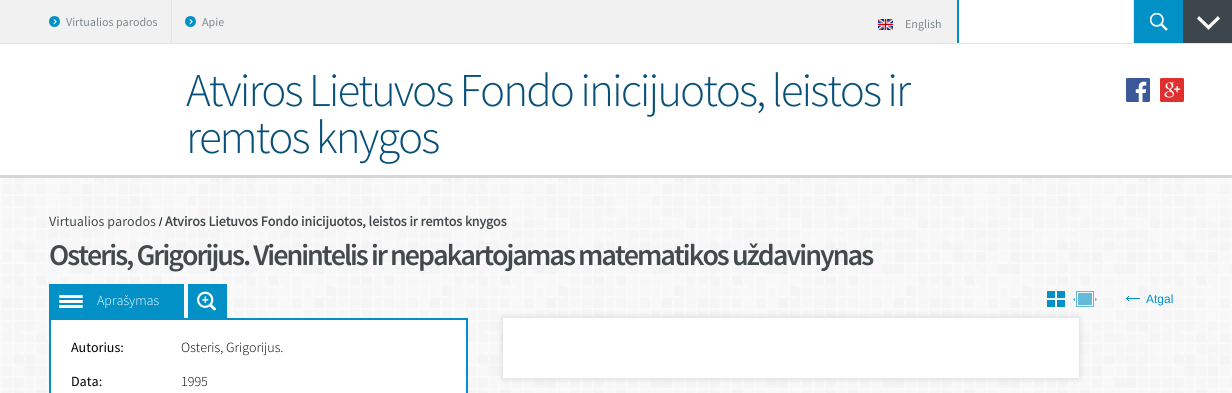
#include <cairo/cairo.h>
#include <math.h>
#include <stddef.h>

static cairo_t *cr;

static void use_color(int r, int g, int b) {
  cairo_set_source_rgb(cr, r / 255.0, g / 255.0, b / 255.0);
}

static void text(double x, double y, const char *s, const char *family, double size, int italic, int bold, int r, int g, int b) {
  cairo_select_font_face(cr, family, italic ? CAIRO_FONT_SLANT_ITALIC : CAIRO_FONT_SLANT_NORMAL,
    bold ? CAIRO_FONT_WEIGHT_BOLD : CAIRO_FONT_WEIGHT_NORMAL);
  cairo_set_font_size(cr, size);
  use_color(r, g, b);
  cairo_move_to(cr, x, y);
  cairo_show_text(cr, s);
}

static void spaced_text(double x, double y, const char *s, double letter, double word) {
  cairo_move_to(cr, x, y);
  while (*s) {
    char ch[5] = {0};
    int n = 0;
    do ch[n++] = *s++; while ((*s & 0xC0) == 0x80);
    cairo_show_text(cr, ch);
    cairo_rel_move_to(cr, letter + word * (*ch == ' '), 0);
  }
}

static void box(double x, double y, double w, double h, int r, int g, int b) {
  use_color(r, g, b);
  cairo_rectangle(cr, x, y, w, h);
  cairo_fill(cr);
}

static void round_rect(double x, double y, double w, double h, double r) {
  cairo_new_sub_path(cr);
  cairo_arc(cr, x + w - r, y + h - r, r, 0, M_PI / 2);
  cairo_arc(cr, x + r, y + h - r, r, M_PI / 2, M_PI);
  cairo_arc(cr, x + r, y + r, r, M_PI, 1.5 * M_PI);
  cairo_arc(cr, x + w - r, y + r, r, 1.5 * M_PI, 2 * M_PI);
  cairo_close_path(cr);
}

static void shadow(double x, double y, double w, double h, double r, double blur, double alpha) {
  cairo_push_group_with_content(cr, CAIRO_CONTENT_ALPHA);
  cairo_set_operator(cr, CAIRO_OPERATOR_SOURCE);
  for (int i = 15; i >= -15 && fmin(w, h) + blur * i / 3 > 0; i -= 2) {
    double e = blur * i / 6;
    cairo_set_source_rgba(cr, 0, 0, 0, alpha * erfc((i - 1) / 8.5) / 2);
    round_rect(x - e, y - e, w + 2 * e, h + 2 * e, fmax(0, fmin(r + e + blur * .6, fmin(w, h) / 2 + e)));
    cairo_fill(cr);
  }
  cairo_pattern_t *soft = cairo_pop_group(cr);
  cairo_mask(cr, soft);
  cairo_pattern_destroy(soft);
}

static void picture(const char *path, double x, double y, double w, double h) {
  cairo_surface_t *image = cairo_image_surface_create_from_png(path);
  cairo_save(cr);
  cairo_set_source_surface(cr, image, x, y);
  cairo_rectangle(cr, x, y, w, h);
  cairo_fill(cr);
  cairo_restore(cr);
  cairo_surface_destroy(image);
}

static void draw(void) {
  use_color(255, 255, 255);
  cairo_paint(cr);
  picture("img_01.png", 0, 178, 1232, 215);
  box(0, 0, 957, 43, 241, 241, 241);
  box(0, 43, 1232, 1, 228, 229, 229);
  picture("img_02.png", 49, 16, 11, 11);
  box(171, 0, 1, 43, 228, 229, 229);
  picture("img_02.png", 185, 16, 11, 11);
  picture("img_03.png", 878, 19, 15, 11);
  box(1133, 0, 1, 43, 228, 229, 229);
  box(957, 0, 2, 43, 1, 145, 198);
  picture("img_04.png", 1134, 0, 49, 43);
  picture("img_05.png", 1183, 0, 49, 43);
  box(0, 175, 1232, 3, 213, 214, 215);
  picture("img_06.png", 1126, 78, 24, 24);
  picture("img_07.png", 1160, 78, 24, 24);
  box(49, 284, 135, 34, 1, 145, 198);
  picture("img_08.png", 59, 295, 24, 13);
  box(188, 284, 39, 34, 1, 145, 198);
  picture("img_09.png", 197, 291, 19, 20);
  picture("img_10.png", 1047, 291, 18, 16);
  picture("img_11.png", 1073, 291, 24, 16);
  picture("img_12.png", 1126, 296, 14, 5);
  use_color(255, 255, 255);
  cairo_rectangle(cr, 50, 319, 417, 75);
  cairo_fill_preserve(cr);
  use_color(1, 145, 198);
  cairo_stroke(cr);
  use_color(0, 0, 0);
  shadow(503, 318, 576, 60, 0, 3.5, 0.15);
  box(503, 318, 576, 60, 255, 255, 255);
  text(66, 26, "Virtualios parodos", "Source Sans Pro", 12, 0, 0, 127, 135, 140);
  text(202, 26, "Apie", "Source Sans Pro", 12, 0, 0, 127, 135, 140);
  text(905, 28, "English", "Source Sans Pro", 12, 0, 0, 127, 135, 140);
  cairo_select_font_face(cr, "Source Sans Pro Light", CAIRO_FONT_SLANT_NORMAL, CAIRO_FONT_WEIGHT_NORMAL);
  cairo_set_font_size(cr, 47);
  use_color(7, 80, 121);
  spaced_text(186, 106, "Atviros Lietuvos Fondo inicijuotos, leistos ir", -2, 0);
  spaced_text(186, 153, "remtos knygos", -2, 0);
  text(49, 226, "Virtualios parodos", "Source Sans Pro", 14, 0, 0, 67, 74, 77);
  text(159, 226, "/", "Liberation Sans", 12, 0, 0, 0, 0, 0);
  text(165, 226, "Atviros Lietuvos Fondo inicijuotos, leistos ir remtos knygos", "Source Sans Pro", 14, 0, 1, 67, 74, 77);
  cairo_select_font_face(cr, "Source Sans Pro SemiBold", CAIRO_FONT_SLANT_NORMAL, CAIRO_FONT_WEIGHT_NORMAL);
  cairo_set_font_size(cr, 30);
  spaced_text(49, 265, "Osteris, Grigorijus. Vienintelis ir nepakartojamas matematikos uždavinynas", -2, 0);
  text(97, 305, "Aprašymas", "Source Sans Pro Light", 14, 0, 0, 255, 255, 255);
  text(1146, 303, "Atgal", "Liberation Sans", 12, 0, 0, 1, 145, 198);
  text(71, 352, "Autorius:", "Source Sans Pro", 14, 0, 0, 0, 0, 0);
  text(181, 352, "Osteris, Grigorijus.", "Source Sans Pro Light", 14, 0, 0, 0, 0, 0);
  text(71, 386, "Data:", "Source Sans Pro", 14, 0, 0, 0, 0, 0);
  text(181, 386, "1995", "Source Sans Pro Light", 14, 0, 0, 0, 0, 0);
}

int main(void) {
  cairo_surface_t *surface = cairo_image_surface_create(CAIRO_FORMAT_RGB24, 1232, 393);
  cr = cairo_create(surface);
  cairo_font_options_t *options = cairo_font_options_create();
  cairo_font_options_set_hint_metrics(options, CAIRO_HINT_METRICS_OFF);
  cairo_font_options_set_hint_style(options, CAIRO_HINT_STYLE_NONE);
  cairo_set_font_options(cr, options);
  cairo_set_miter_limit(cr, 4);
  draw();
  cairo_surface_write_to_png(surface, "out.png");
  cairo_font_options_destroy(options);
  cairo_destroy(cr);
  cairo_surface_destroy(surface);
  return 0;
}
